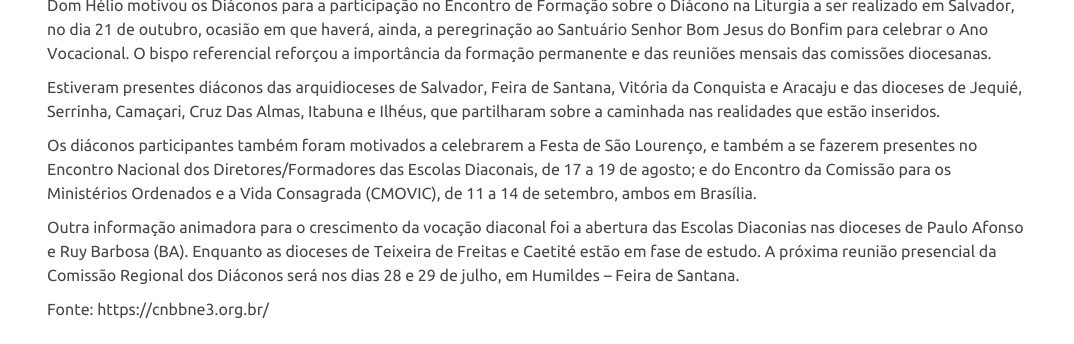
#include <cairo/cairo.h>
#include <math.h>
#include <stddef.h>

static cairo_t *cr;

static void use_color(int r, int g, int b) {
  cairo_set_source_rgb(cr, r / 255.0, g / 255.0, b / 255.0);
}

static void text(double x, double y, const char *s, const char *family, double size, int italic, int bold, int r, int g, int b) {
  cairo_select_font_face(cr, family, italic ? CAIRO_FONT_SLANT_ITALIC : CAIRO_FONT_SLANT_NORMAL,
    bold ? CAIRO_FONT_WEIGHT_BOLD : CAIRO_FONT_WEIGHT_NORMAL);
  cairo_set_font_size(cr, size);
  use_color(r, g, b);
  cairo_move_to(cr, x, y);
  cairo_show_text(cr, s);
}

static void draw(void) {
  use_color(255, 255, 255);
  cairo_paint(cr);
  text(47, 11, "Dom Hélio motivou os Diáconos para a participação no Encontro de Formação sobre o Diácono na Liturgia a ser realizado em Salvador,", "Ubuntu", 16, 0, 0, 70, 70, 70);
  text(47, 35, "no dia 21 de outubro, ocasião em que haverá, ainda, a peregrinação ao Santuário Senhor Bom Jesus do Bonfim para celebrar o Ano", "Ubuntu", 16, 0, 0, 70, 70, 70);
  text(47, 59, "Vocacional. O bispo referencial reforçou a importância da formação permanente e das reuniões mensais das comissões diocesanas.", "Ubuntu", 16, 0, 0, 70, 70, 70);
  text(47, 93, "Estiveram presentes diáconos das arquidioceses de Salvador, Feira de Santana, Vitória da Conquista e Aracaju e das dioceses de Jequié,", "Ubuntu", 16, 0, 0, 70, 70, 70);
  text(47, 117, "Serrinha, Camaçari, Cruz Das Almas, Itabuna e Ilhéus, que partilharam sobre a caminhada nas realidades que estão inseridos.", "Ubuntu", 16, 0, 0, 70, 70, 70);
  text(47, 151, "Os diáconos participantes também foram motivados a celebrarem a Festa de São Lourenço, e também a se fazerem presentes no", "Ubuntu", 16, 0, 0, 70, 70, 70);
  text(47, 175, "Encontro Nacional dos Diretores/Formadores das Escolas Diaconais, de 17 a 19 de agosto; e do Encontro da Comissão para os", "Ubuntu", 16, 0, 0, 70, 70, 70);
  text(47, 199, "Ministérios Ordenados e a Vida Consagrada (CMOVIC), de 11 a 14 de setembro, ambos em Brasília.", "Ubuntu", 16, 0, 0, 70, 70, 70);
  text(47, 233, "Outra informação animadora para o crescimento da vocação diaconal foi a abertura das Escolas Diaconias nas dioceses de Paulo Afonso", "Ubuntu", 16, 0, 0, 70, 70, 70);
  text(47, 257, "e Ruy Barbosa (BA). Enquanto as dioceses de Teixeira de Freitas e Caetité estão em fase de estudo. A próxima reunião presencial da", "Ubuntu", 16, 0, 0, 70, 70, 70);
  text(47, 281, "Comissão Regional dos Diáconos será nos dias 28 e 29 de julho, em Humildes – Feira de Santana.", "Ubuntu", 16, 0, 0, 70, 70, 70);
  text(47, 315, "Fonte: https://cnbbne3.org.br/", "Ubuntu", 16, 0, 0, 70, 70, 70);
}

int main(void) {
  cairo_surface_t *surface = cairo_image_surface_create(CAIRO_FORMAT_RGB24, 1074, 344);
  cr = cairo_create(surface);
  cairo_font_options_t *options = cairo_font_options_create();
  cairo_font_options_set_hint_metrics(options, CAIRO_HINT_METRICS_OFF);
  cairo_font_options_set_hint_style(options, CAIRO_HINT_STYLE_NONE);
  cairo_set_font_options(cr, options);
  cairo_set_miter_limit(cr, 4);
  draw();
  cairo_surface_write_to_png(surface, "out.png");
  cairo_font_options_destroy(options);
  cairo_destroy(cr);
  cairo_surface_destroy(surface);
  return 0;
}
